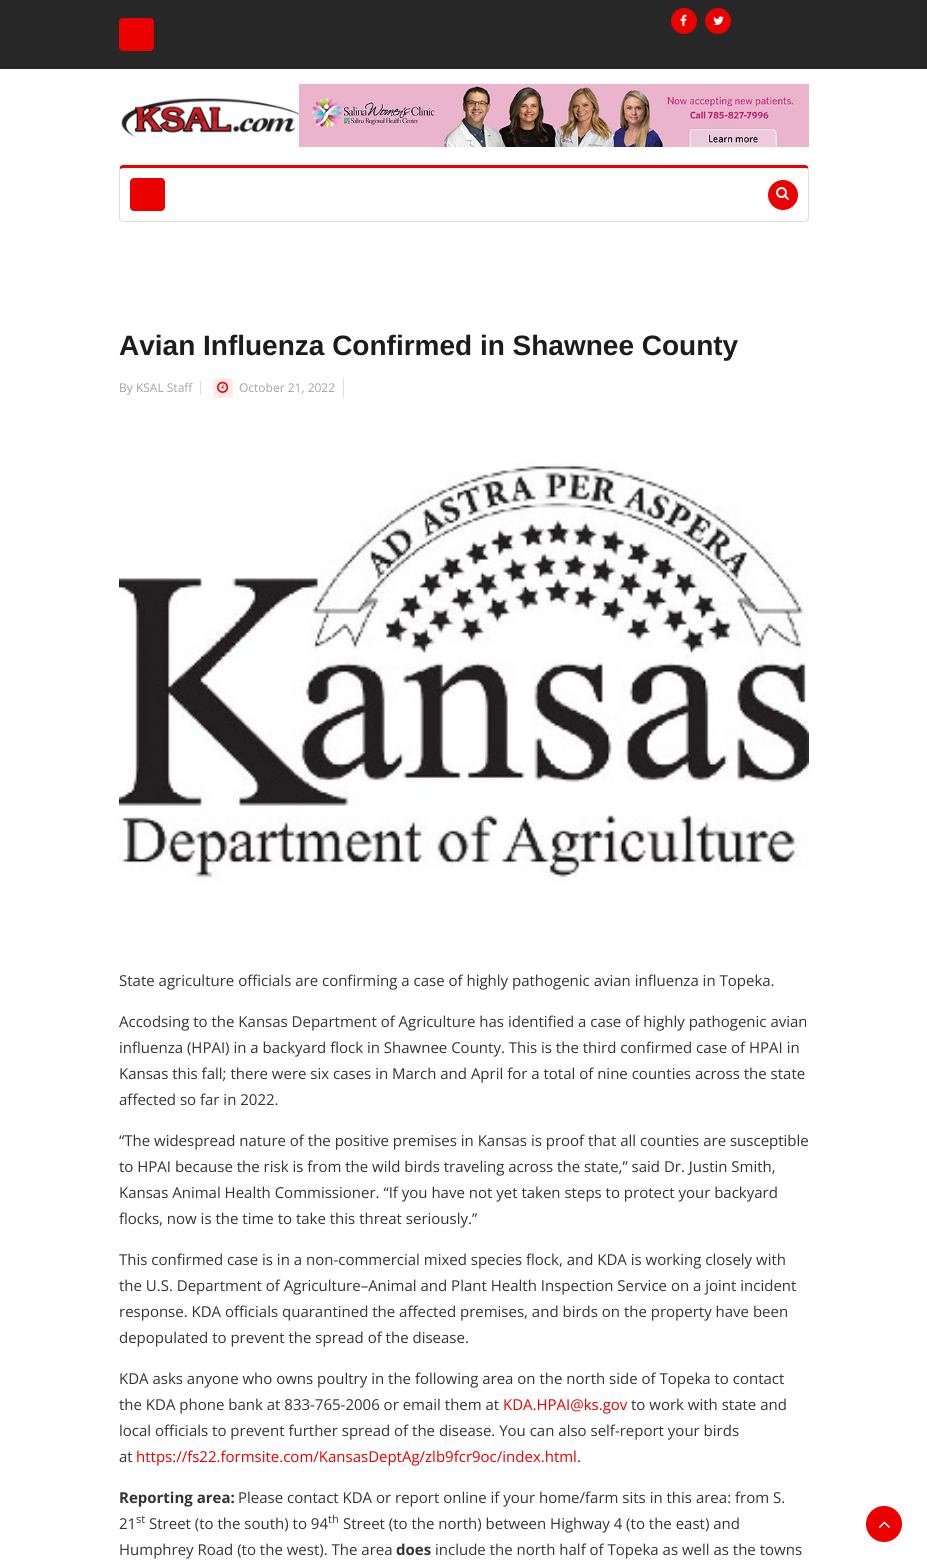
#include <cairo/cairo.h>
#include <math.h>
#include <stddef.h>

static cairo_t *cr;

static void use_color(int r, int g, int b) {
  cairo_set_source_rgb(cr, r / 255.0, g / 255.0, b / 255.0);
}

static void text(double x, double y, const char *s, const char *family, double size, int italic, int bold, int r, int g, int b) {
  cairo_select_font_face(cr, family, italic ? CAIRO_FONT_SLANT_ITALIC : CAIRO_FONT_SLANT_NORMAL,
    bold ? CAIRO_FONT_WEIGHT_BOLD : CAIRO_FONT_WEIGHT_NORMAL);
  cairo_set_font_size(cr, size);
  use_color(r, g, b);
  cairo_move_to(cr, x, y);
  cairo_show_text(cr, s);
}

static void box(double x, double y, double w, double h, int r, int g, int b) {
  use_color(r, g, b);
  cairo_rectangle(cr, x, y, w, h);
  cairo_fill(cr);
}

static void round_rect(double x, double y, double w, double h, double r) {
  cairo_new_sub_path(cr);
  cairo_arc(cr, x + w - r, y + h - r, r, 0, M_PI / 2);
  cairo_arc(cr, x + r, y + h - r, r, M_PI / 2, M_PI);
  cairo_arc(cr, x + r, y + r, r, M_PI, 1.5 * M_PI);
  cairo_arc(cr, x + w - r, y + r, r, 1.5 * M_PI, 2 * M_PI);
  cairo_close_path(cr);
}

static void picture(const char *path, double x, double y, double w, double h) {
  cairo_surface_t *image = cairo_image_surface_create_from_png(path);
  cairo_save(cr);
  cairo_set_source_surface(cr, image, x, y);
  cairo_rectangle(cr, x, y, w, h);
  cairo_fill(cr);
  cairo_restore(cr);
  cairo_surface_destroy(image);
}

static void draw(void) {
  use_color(255, 255, 255);
  cairo_paint(cr);
  box(0, 0, 927, 69, 39, 39, 39);
  use_color(236, 0, 0);
  round_rect(119, 18, 35, 33, 4);
  cairo_fill(cr);
  cairo_arc(cr, 684, 21, 13, 0, 2 * M_PI);
  cairo_fill(cr);
  picture("img_01.png", 680, 14, 7, 12);
  cairo_arc(cr, 718, 21, 13, 0, 2 * M_PI);
  cairo_fill(cr);
  picture("img_02.png", 713, 16, 11, 9);
  picture("img_03.png", 121, 98, 178, 39);
  picture("img_04.png", 299, 84, 510, 63);
  cairo_new_path(cr);
  cairo_move_to(cr, 123, 165);
  cairo_curve_to(cr, 122, 165, 120, 166, 120, 167);
  cairo_line_to(cr, 120, 169);
  cairo_line_to(cr, 123, 168);
  cairo_line_to(cr, 807, 168);
  cairo_line_to(cr, 808, 169);
  cairo_line_to(cr, 808, 167);
  cairo_curve_to(cr, 808, 166, 806, 165, 805, 165);
  cairo_close_path(cr);
  cairo_fill(cr);
  use_color(222, 222, 222);
  cairo_new_path(cr);
  cairo_move_to(cr, 809, 218);
  cairo_line_to(cr, 809, 169);
  cairo_line_to(cr, 808, 167);
  cairo_line_to(cr, 808, 169);
  cairo_line_to(cr, 808, 217);
  cairo_line_to(cr, 807, 220);
  cairo_line_to(cr, 808, 221);
  cairo_close_path(cr);
  cairo_fill(cr);
  cairo_new_path(cr);
  cairo_move_to(cr, 123, 222);
  cairo_line_to(cr, 805, 222);
  cairo_line_to(cr, 808, 221);
  cairo_line_to(cr, 807, 220);
  cairo_line_to(cr, 805, 221);
  cairo_line_to(cr, 123, 221);
  cairo_line_to(cr, 121, 220);
  cairo_line_to(cr, 120, 221);
  cairo_close_path(cr);
  cairo_fill(cr);
  cairo_new_path(cr);
  cairo_move_to(cr, 119, 169);
  cairo_line_to(cr, 119, 219);
  cairo_line_to(cr, 120, 221);
  cairo_line_to(cr, 121, 220);
  cairo_line_to(cr, 120, 219);
  cairo_line_to(cr, 120, 169);
  cairo_line_to(cr, 120, 167);
  cairo_close_path(cr);
  cairo_fill(cr);
  use_color(236, 0, 0);
  round_rect(130, 178, 35, 33, 4);
  cairo_fill(cr);
  cairo_arc(cr, 783, 195, 15, 0, 2 * M_PI);
  cairo_fill(cr);
  picture("img_05.png", 776, 187, 13, 13);
  box(200, 381, 1, 14, 222, 222, 222);
  box(343, 378, 1, 20, 222, 222, 222);
  use_color(255, 234, 234);
  round_rect(213, 378, 20, 20, 4);
  cairo_fill(cr);
  picture("img_06.png", 217, 381, 12, 12);
  picture("img_07.png", 119, 461, 690, 422);
  use_color(236, 0, 0);
  cairo_arc(cr, 884, 1524, 18, 0, 2 * M_PI);
  cairo_fill(cr);
  picture("img_08.png", 878, 1521, 12, 7);
  text(119, 355, "Avian Influenza Confirmed in Shawnee County", "Arimo", 28, 0, 1, 28, 28, 28);
  text(119, 392, "By KSAL Staff", "Open Sans", 12, 0, 0, 163, 163, 163);
  text(239, 392, "October 21, 2022", "Open Sans", 12, 0, 0, 163, 163, 163);
  text(119, 986, "State agriculture officials are confirming a case of highly pathogenic avian influenza in Topeka.", "Open Sans", 15, 0, 0, 51, 51, 51);
  text(119, 1027, "Accodsing to the Kansas Department of Agriculture has identified a case of highly pathogenic avian", "Open Sans", 15, 0, 0, 51, 51, 51);
  text(119, 1053, "influenza (HPAI) in a backyard flock in Shawnee County. This is the third confirmed case of HPAI in", "Open Sans", 15, 0, 0, 51, 51, 51);
  text(119, 1079, "Kansas this fall; there were six cases in March and April for a total of nine counties across the state", "Open Sans", 15, 0, 0, 51, 51, 51);
  text(119, 1105, "affected so far in 2022.", "Open Sans", 15, 0, 0, 51, 51, 51);
  text(119, 1146, "“The widespread nature of the positive premises in Kansas is proof that all counties are susceptible", "Open Sans", 15, 0, 0, 51, 51, 51);
  text(119, 1172, "to HPAI because the risk is from the wild birds traveling across the state,” said Dr. Justin Smith,", "Open Sans", 15, 0, 0, 51, 51, 51);
  text(119, 1198, "Kansas Animal Health Commissioner. “If you have not yet taken steps to protect your backyard", "Open Sans", 15, 0, 0, 51, 51, 51);
  text(119, 1224, "flocks, now is the time to take this threat seriously.”", "Open Sans", 15, 0, 0, 51, 51, 51);
  text(119, 1265, "This confirmed case is in a non-commercial mixed species flock, and KDA is working closely with", "Open Sans", 15, 0, 0, 51, 51, 51);
  text(119, 1291, "the U.S. Department of Agriculture–Animal and Plant Health Inspection Service on a joint incident", "Open Sans", 15, 0, 0, 51, 51, 51);
  text(119, 1317, "response. KDA officials quarantined the affected premises, and birds on the property have been", "Open Sans", 15, 0, 0, 51, 51, 51);
  text(119, 1343, "depopulated to prevent the spread of the disease.", "Open Sans", 15, 0, 0, 51, 51, 51);
  text(119, 1384, "KDA asks anyone who owns poultry in the following area on the north side of Topeka to contact", "Open Sans", 15, 0, 0, 51, 51, 51);
  text(119, 1410, "the KDA phone bank at 833-765-2006 or email them at", "Open Sans", 15, 0, 0, 51, 51, 51);
  text(503, 1410, "KDA.HPAI@ks.gov", "Open Sans", 15, 0, 0, 236, 0, 0);
  text(631, 1410, "to work with state and", "Open Sans", 15, 0, 0, 51, 51, 51);
  text(119, 1436, "local officials to prevent further spread of the disease. You can also self-report your birds", "Open Sans", 15, 0, 0, 51, 51, 51);
  text(119, 1462, "at", "Open Sans", 15, 0, 0, 51, 51, 51);
  text(136, 1462, "https://fs22.formsite.com/KansasDeptAg/zlb9fcr9oc/index.html", "Open Sans", 15, 0, 0, 236, 0, 0);
  text(577, 1462, ".", "Open Sans", 15, 0, 0, 51, 51, 51);
  text(119, 1503, "Reporting area:", "Open Sans", 15, 0, 1, 51, 51, 51);
  text(238, 1503, "Please contact KDA or report online if your home/farm sits in this area: from S.", "Open Sans", 15, 0, 0, 51, 51, 51);
  text(119, 1529, "21", "Open Sans", 15, 0, 0, 51, 51, 51);
  text(136, 1523, "st", "Open Sans", 11, 0, 0, 51, 51, 51);
  text(149, 1529, "Street (to the south) to 94", "Open Sans", 15, 0, 0, 51, 51, 51);
  text(328, 1523, "th", "Open Sans", 11, 0, 0, 51, 51, 51);
  text(343, 1529, "Street (to the north) between Highway 4 (to the east) and", "Open Sans", 15, 0, 0, 51, 51, 51);
  text(119, 1555, "Humphrey Road (to the west). The area", "Open Sans", 15, 0, 0, 51, 51, 51);
  text(396, 1555, "does", "Open Sans", 15, 0, 1, 51, 51, 51);
  text(435, 1555, "include the north half of Topeka as well as the towns", "Open Sans", 15, 0, 0, 51, 51, 51);
}

int main(void) {
  cairo_surface_t *surface = cairo_image_surface_create(CAIRO_FORMAT_RGB24, 927, 1567);
  cr = cairo_create(surface);
  cairo_font_options_t *options = cairo_font_options_create();
  cairo_font_options_set_hint_metrics(options, CAIRO_HINT_METRICS_OFF);
  cairo_font_options_set_hint_style(options, CAIRO_HINT_STYLE_NONE);
  cairo_set_font_options(cr, options);
  cairo_set_miter_limit(cr, 4);
  draw();
  cairo_surface_write_to_png(surface, "out.png");
  cairo_font_options_destroy(options);
  cairo_destroy(cr);
  cairo_surface_destroy(surface);
  return 0;
}
